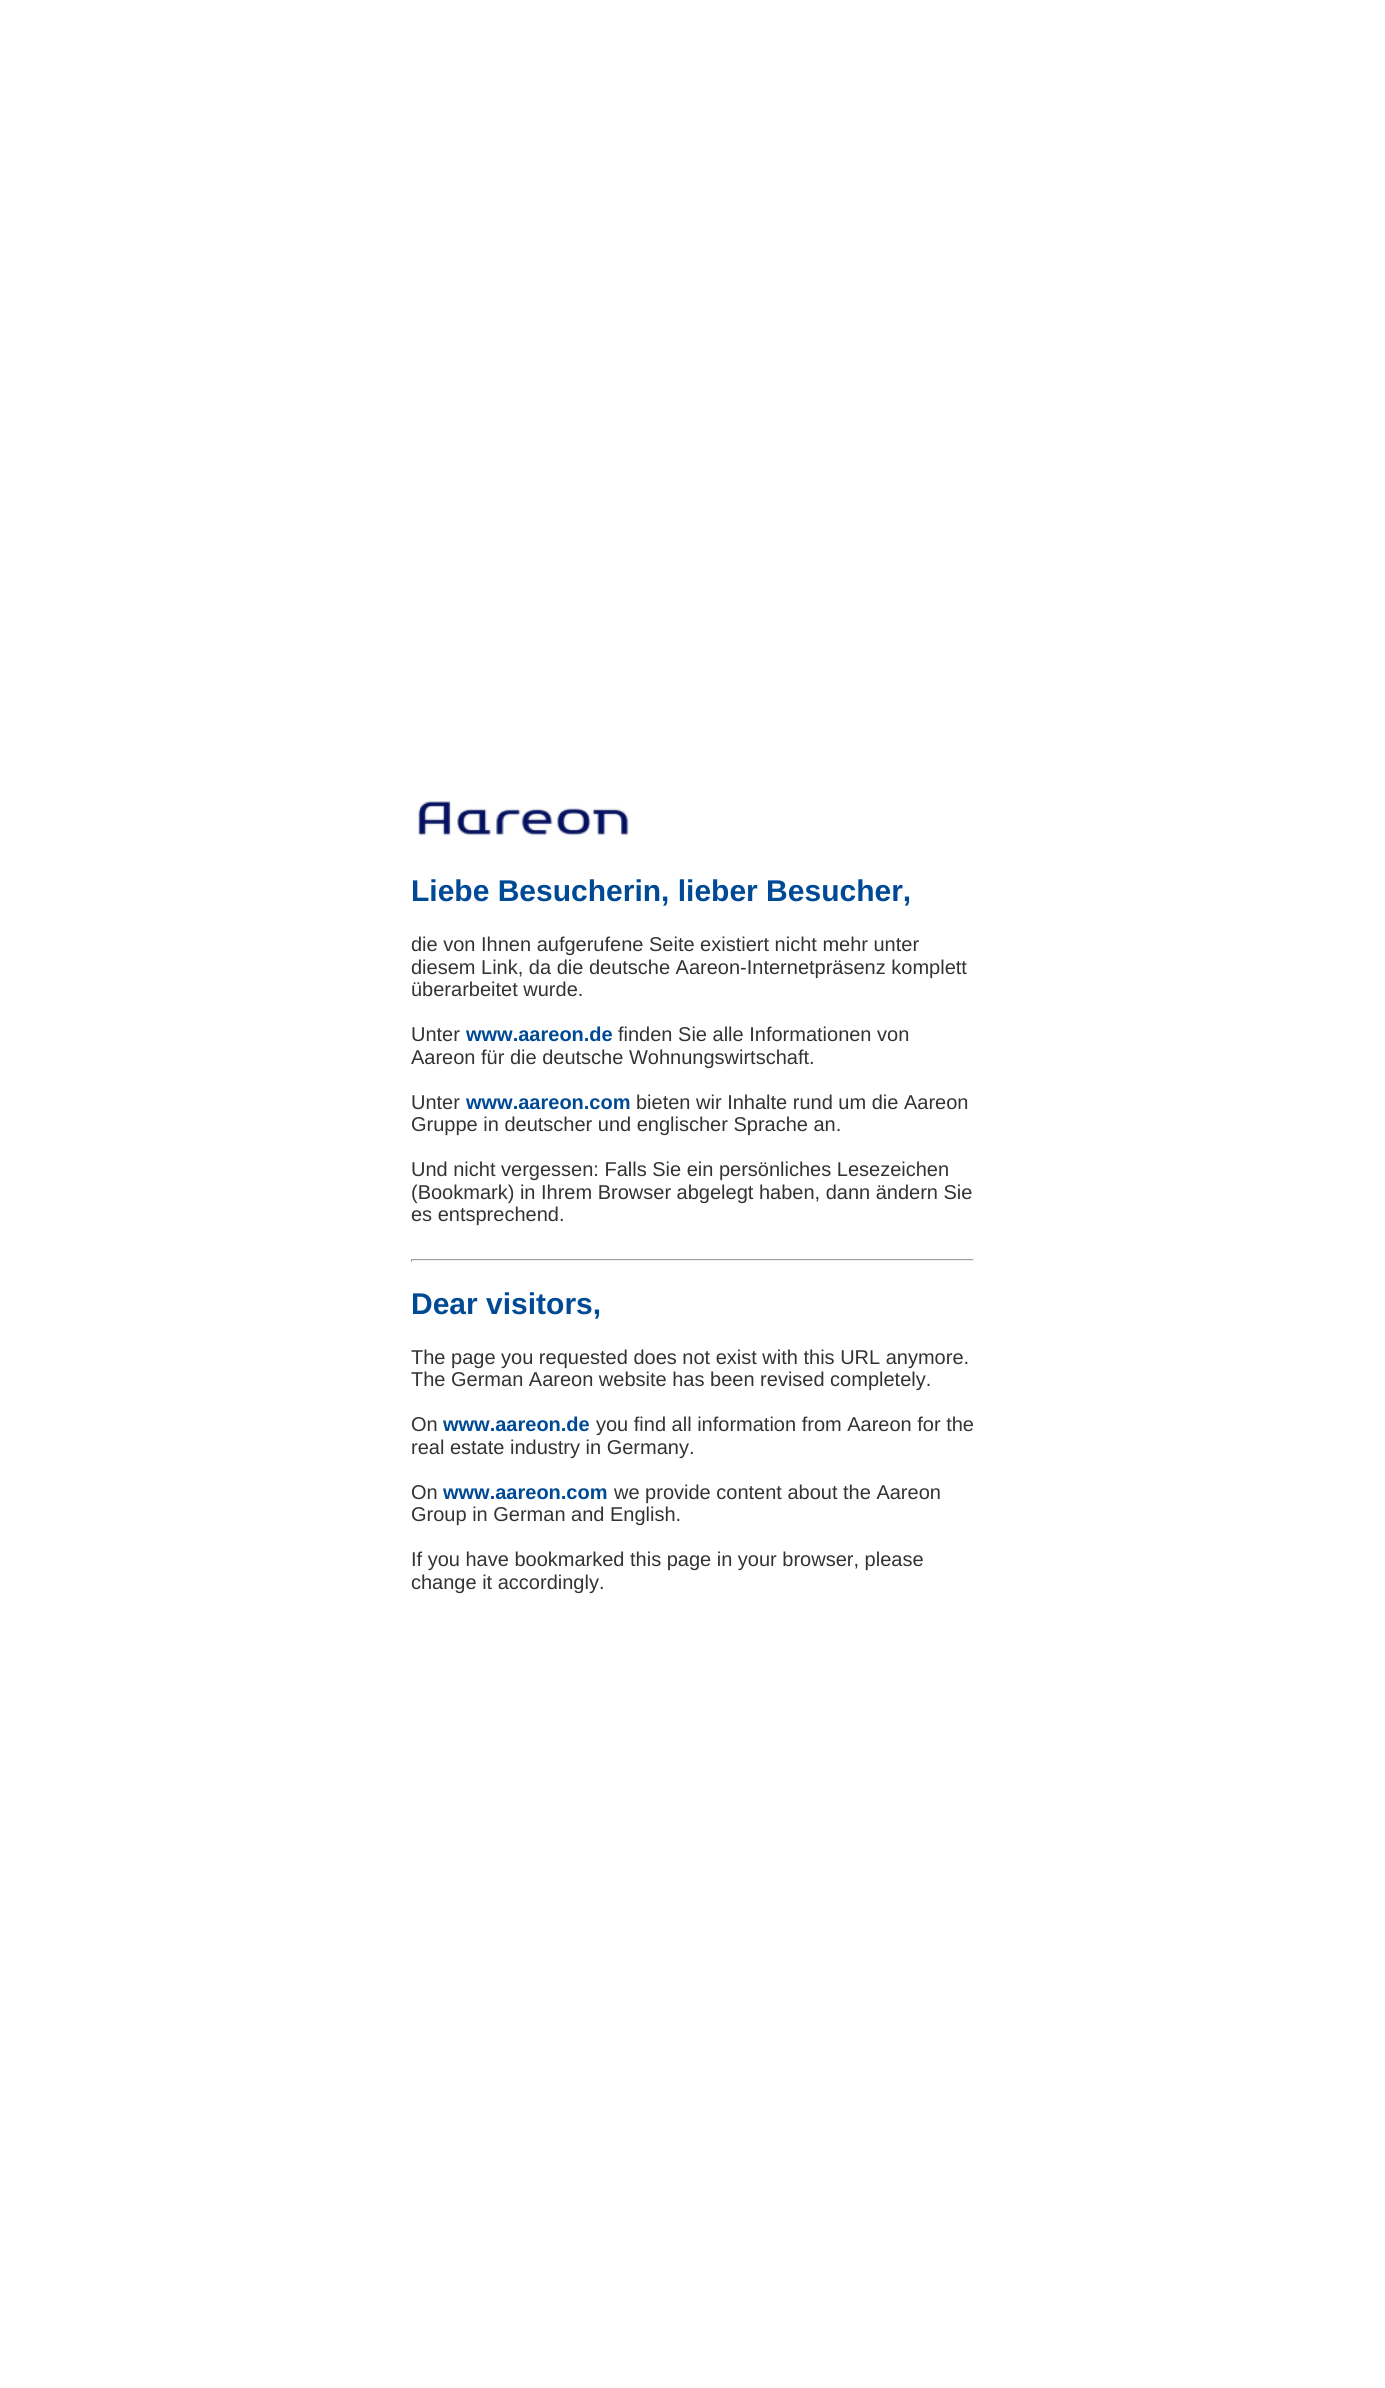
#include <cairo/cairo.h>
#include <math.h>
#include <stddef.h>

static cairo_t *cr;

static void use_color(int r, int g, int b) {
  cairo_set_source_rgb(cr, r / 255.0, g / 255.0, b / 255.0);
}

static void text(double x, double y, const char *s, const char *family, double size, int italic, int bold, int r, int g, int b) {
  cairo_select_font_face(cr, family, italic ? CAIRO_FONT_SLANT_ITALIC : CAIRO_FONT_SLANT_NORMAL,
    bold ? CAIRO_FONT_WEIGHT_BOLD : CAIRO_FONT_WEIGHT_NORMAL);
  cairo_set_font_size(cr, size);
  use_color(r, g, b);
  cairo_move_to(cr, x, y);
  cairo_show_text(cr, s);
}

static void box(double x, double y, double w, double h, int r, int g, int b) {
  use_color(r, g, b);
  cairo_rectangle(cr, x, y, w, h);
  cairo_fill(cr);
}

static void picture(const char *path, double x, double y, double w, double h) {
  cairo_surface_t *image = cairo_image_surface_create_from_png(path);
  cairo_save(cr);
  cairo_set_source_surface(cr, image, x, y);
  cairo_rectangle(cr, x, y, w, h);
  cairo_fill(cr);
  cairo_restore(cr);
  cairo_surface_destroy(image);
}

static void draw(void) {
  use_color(255, 255, 255);
  cairo_paint(cr);
  picture("img_01.png", 418, 801, 211, 35);
  box(411, 1259, 563, 1, 159, 159, 159);
  box(973, 1259, 1, 3, 238, 238, 238);
  box(411, 1260, 563, 1, 238, 238, 238);
  box(411, 1259, 1, 3, 159, 159, 159);
  text(411, 901, "Liebe Besucherin, lieber Besucher,", "Liberation Sans", 30, 0, 1, 0, 74, 149);
  text(411, 951, "die von Ihnen aufgerufene Seite existiert nicht mehr unter", "Liberation Sans", 20, 0, 0, 51, 51, 51);
  text(411, 974, "diesem Link, da die deutsche Aareon-Internetpräsenz komplett", "Liberation Sans", 20, 0, 0, 51, 51, 51);
  text(411, 996, "überarbeitet wurde.", "Liberation Sans", 20, 0, 0, 51, 51, 51);
  text(411, 1041, "Unter", "Liberation Sans", 20, 0, 0, 51, 51, 51);
  text(466, 1041, "www.aareon.de", "Liberation Sans", 20, 0, 1, 0, 74, 149);
  text(618, 1041, "finden Sie alle Informationen von", "Liberation Sans", 20, 0, 0, 51, 51, 51);
  text(411, 1064, "Aareon für die deutsche Wohnungswirtschaft.", "Liberation Sans", 20, 0, 0, 51, 51, 51);
  text(411, 1109, "Unter", "Liberation Sans", 20, 0, 0, 51, 51, 51);
  text(466, 1109, "www.aareon.com", "Liberation Sans", 20, 0, 1, 0, 74, 149);
  text(636, 1109, "bieten wir Inhalte rund um die Aareon", "Liberation Sans", 20, 0, 0, 51, 51, 51);
  text(411, 1131, "Gruppe in deutscher und englischer Sprache an.", "Liberation Sans", 20, 0, 0, 51, 51, 51);
  text(411, 1176, "Und nicht vergessen: Falls Sie ein persönliches Lesezeichen", "Liberation Sans", 20, 0, 0, 51, 51, 51);
  text(411, 1199, "(Bookmark) in Ihrem Browser abgelegt haben, dann ändern Sie", "Liberation Sans", 20, 0, 0, 51, 51, 51);
  text(411, 1221, "es entsprechend.", "Liberation Sans", 20, 0, 0, 51, 51, 51);
  text(411, 1314, "Dear visitors,", "Liberation Sans", 30, 0, 1, 0, 74, 149);
  text(411, 1364, "The page you requested does not exist with this URL anymore.", "Liberation Sans", 20, 0, 0, 51, 51, 51);
  text(411, 1386, "The German Aareon website has been revised completely.", "Liberation Sans", 20, 0, 0, 51, 51, 51);
  text(411, 1431, "On", "Liberation Sans", 20, 0, 0, 51, 51, 51);
  text(443, 1431, "www.aareon.de", "Liberation Sans", 20, 0, 1, 0, 74, 149);
  text(596, 1431, "you find all information from Aareon for the", "Liberation Sans", 20, 0, 0, 51, 51, 51);
  text(411, 1454, "real estate industry in Germany.", "Liberation Sans", 20, 0, 0, 51, 51, 51);
  text(411, 1499, "On", "Liberation Sans", 20, 0, 0, 51, 51, 51);
  text(443, 1499, "www.aareon.com", "Liberation Sans", 20, 0, 1, 0, 74, 149);
  text(614, 1499, "we provide content about the Aareon", "Liberation Sans", 20, 0, 0, 51, 51, 51);
  text(411, 1521, "Group in German and English.", "Liberation Sans", 20, 0, 0, 51, 51, 51);
  text(411, 1566, "If you have bookmarked this page in your browser, please", "Liberation Sans", 20, 0, 0, 51, 51, 51);
  text(411, 1589, "change it accordingly.", "Liberation Sans", 20, 0, 0, 51, 51, 51);
}

int main(void) {
  cairo_surface_t *surface = cairo_image_surface_create(CAIRO_FORMAT_RGB24, 1385, 2388);
  cr = cairo_create(surface);
  cairo_font_options_t *options = cairo_font_options_create();
  cairo_font_options_set_hint_metrics(options, CAIRO_HINT_METRICS_OFF);
  cairo_font_options_set_hint_style(options, CAIRO_HINT_STYLE_NONE);
  cairo_set_font_options(cr, options);
  cairo_set_miter_limit(cr, 4);
  draw();
  cairo_surface_write_to_png(surface, "out.png");
  cairo_font_options_destroy(options);
  cairo_destroy(cr);
  cairo_surface_destroy(surface);
  return 0;
}
